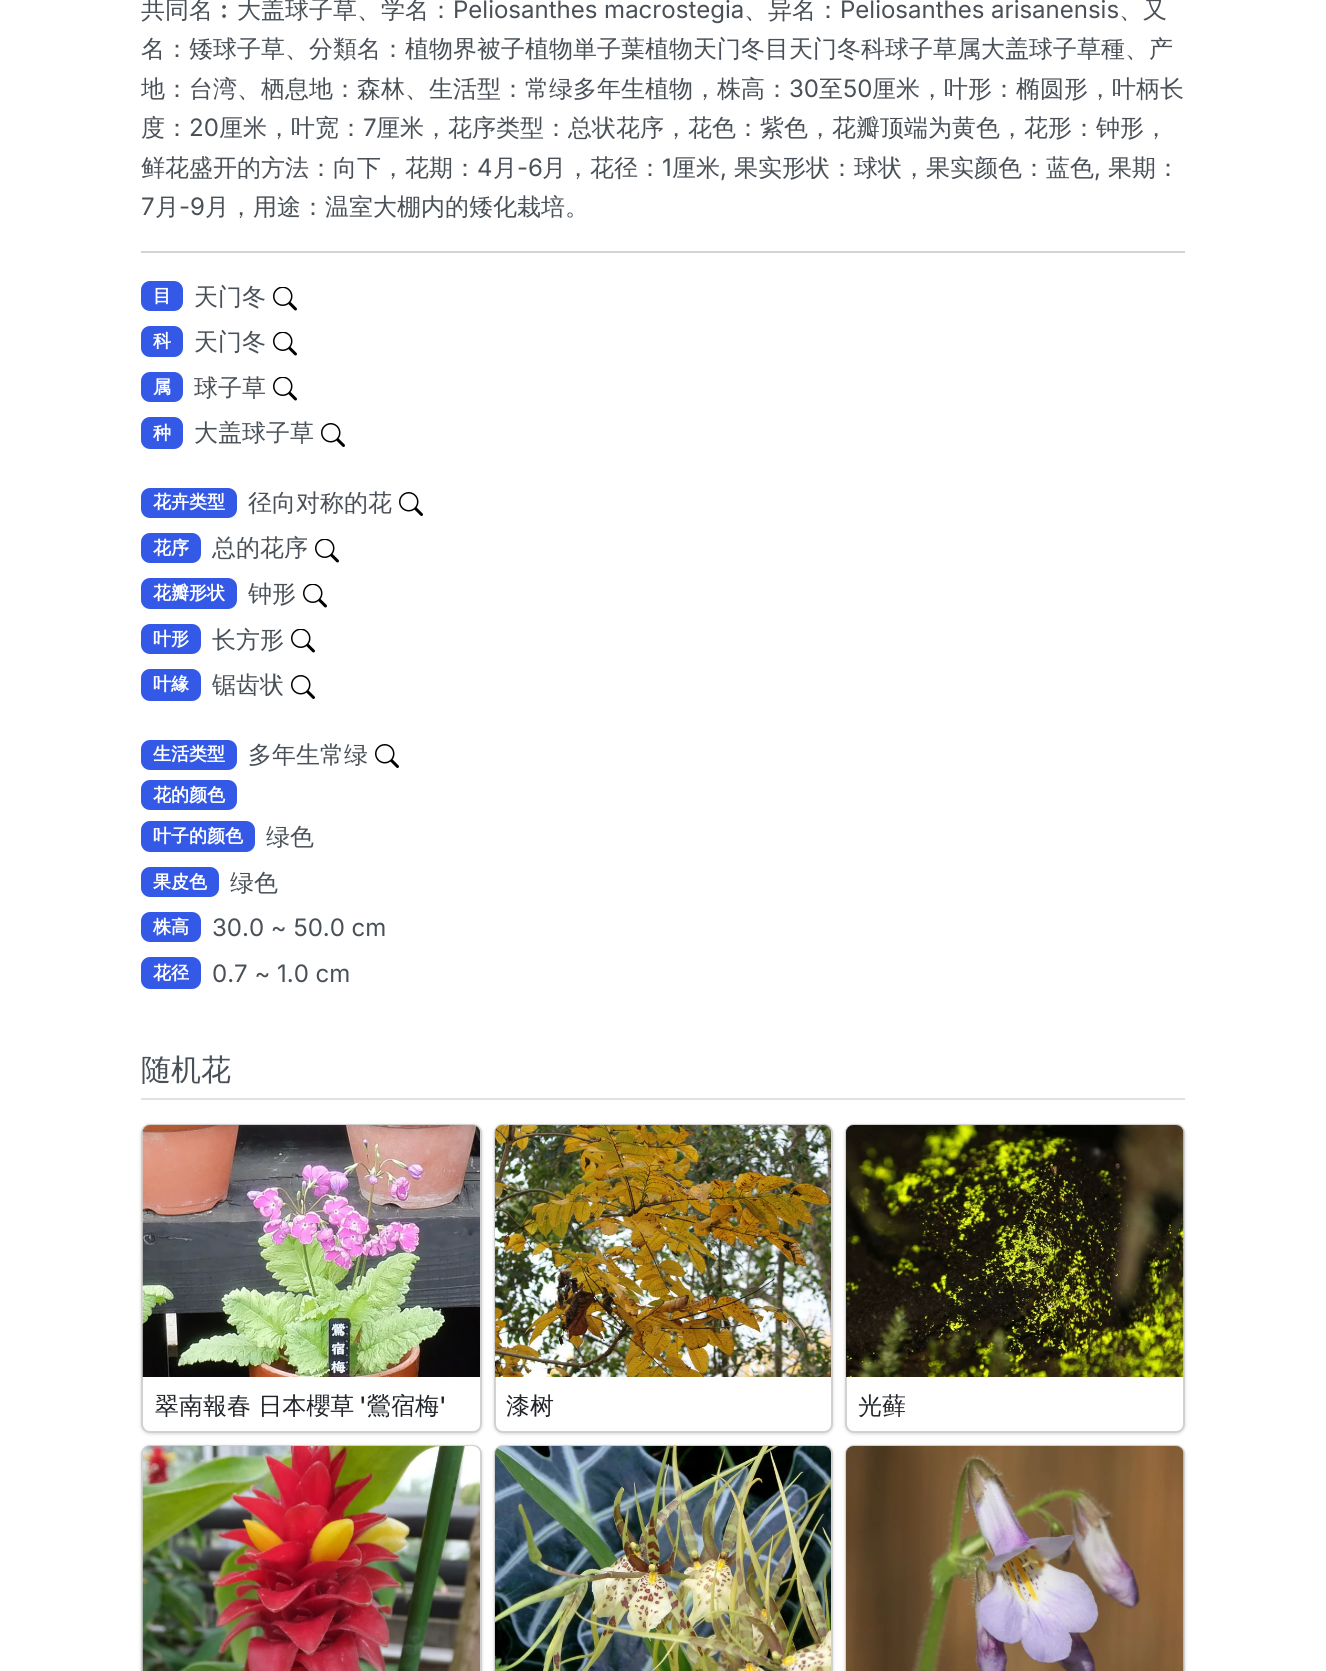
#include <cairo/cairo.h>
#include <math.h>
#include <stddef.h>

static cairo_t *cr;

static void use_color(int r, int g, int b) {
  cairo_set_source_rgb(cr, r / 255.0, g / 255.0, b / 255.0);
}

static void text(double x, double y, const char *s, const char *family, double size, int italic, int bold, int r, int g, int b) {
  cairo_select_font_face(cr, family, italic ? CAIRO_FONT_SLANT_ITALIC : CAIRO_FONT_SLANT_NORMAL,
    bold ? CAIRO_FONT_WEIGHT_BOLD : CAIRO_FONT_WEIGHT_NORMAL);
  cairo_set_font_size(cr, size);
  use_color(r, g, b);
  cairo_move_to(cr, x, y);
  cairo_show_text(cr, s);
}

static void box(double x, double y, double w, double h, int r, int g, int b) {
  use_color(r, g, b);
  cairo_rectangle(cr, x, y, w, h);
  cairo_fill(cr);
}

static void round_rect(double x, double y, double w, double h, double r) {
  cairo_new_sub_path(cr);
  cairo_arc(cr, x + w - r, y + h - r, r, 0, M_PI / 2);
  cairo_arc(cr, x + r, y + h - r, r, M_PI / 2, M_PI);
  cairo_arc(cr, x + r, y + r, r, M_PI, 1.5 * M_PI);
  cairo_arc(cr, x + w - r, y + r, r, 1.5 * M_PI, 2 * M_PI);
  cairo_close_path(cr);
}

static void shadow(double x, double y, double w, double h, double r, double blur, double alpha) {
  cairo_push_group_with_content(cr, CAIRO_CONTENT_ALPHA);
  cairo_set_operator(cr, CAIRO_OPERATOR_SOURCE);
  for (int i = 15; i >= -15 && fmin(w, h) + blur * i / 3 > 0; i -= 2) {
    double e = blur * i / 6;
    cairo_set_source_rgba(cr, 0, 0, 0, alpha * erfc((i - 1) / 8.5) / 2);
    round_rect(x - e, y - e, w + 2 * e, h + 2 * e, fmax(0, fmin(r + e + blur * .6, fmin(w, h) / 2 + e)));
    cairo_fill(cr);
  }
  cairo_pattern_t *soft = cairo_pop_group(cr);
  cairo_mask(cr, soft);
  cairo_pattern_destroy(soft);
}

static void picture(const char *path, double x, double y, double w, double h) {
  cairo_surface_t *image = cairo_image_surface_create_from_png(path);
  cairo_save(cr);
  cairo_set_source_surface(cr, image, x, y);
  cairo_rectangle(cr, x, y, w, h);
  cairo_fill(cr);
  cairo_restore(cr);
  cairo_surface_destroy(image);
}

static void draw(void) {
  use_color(255, 255, 255);
  cairo_paint(cr);
  box(141, 251, 1044, 2, 210, 211, 213);
  use_color(52, 89, 230);
  round_rect(141, 281, 42, 30, 9);
  cairo_fill(cr);
  picture("img_01.png", 273, 287, 24, 24);
  round_rect(141, 326, 42, 31, 9);
  cairo_fill(cr);
  picture("img_01.png", 273, 332, 24, 24);
  round_rect(141, 372, 42, 30, 9);
  cairo_fill(cr);
  picture("img_01.png", 273, 377, 24, 24);
  round_rect(141, 417, 42, 32, 9);
  cairo_fill(cr);
  picture("img_02.png", 321, 423, 24, 24);
  round_rect(141, 488, 96, 30, 9);
  cairo_fill(cr);
  picture("img_02.png", 399, 492, 24, 24);
  round_rect(141, 533, 60, 30, 9);
  cairo_fill(cr);
  picture("img_01.png", 315, 539, 24, 24);
  round_rect(141, 578, 96, 31, 9);
  cairo_fill(cr);
  picture("img_01.png", 303, 584, 24, 24);
  round_rect(141, 624, 60, 30, 9);
  cairo_fill(cr);
  picture("img_01.png", 291, 629, 24, 24);
  round_rect(141, 669, 60, 32, 9);
  cairo_fill(cr);
  picture("img_02.png", 291, 675, 24, 24);
  round_rect(141, 740, 96, 30, 9);
  cairo_fill(cr);
  picture("img_02.png", 375, 744, 24, 24);
  round_rect(141, 780, 96, 30, 9);
  cairo_fill(cr);
  round_rect(141, 821, 114, 31, 9);
  cairo_fill(cr);
  round_rect(141, 867, 78, 30, 9);
  cairo_fill(cr);
  round_rect(141, 912, 60, 30, 9);
  cairo_fill(cr);
  round_rect(141, 957, 60, 32, 9);
  cairo_fill(cr);
  box(141, 1098, 1044, 2, 222, 226, 230);
  use_color(0, 0, 0);
  shadow(141, 1125, 341, 309, 9, 1.5, 0.06);
  shadow(141, 1125, 341, 309, 9, 2, 0.1);
  use_color(255, 255, 255);
  round_rect(141, 1124, 341, 309, 9);
  cairo_fill(cr);
  round_rect(142, 1125, 339, 307, 8);
  cairo_set_source_rgba(cr, 0, 0, 0, 0.18);
  cairo_stroke(cr);
  picture("img_03.png", 142, 1125, 338, 252);
  use_color(0, 0, 0);
  shadow(494, 1125, 339, 309, 9, 1.5, 0.06);
  shadow(494, 1125, 339, 309, 9, 2, 0.1);
  use_color(255, 255, 255);
  round_rect(494, 1124, 339, 309, 9);
  cairo_fill(cr);
  round_rect(495, 1125, 337, 307, 8);
  cairo_set_source_rgba(cr, 0, 0, 0, 0.18);
  cairo_stroke(cr);
  picture("img_04.png", 495, 1125, 336, 252);
  use_color(0, 0, 0);
  shadow(845, 1125, 340, 309, 9, 1.5, 0.06);
  shadow(845, 1125, 340, 309, 9, 2, 0.1);
  use_color(255, 255, 255);
  round_rect(845, 1124, 340, 309, 9);
  cairo_fill(cr);
  round_rect(846, 1125, 338, 307, 8);
  cairo_set_source_rgba(cr, 0, 0, 0, 0.18);
  cairo_stroke(cr);
  picture("img_05.png", 846, 1125, 338, 252);
  use_color(0, 0, 0);
  shadow(141, 1446, 341, 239, 9, 1.5, 0.06);
  shadow(141, 1446, 341, 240, 9, 2, 0.1);
  use_color(255, 255, 255);
  round_rect(141, 1445, 341, 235, 9);
  cairo_fill(cr);
  round_rect(142, 1446, 339, 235, 8);
  cairo_set_source_rgba(cr, 0, 0, 0, 0.18);
  cairo_stroke(cr);
  picture("img_06.png", 142, 1446, 338, 225);
  use_color(0, 0, 0);
  shadow(494, 1446, 339, 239, 9, 1.5, 0.06);
  shadow(494, 1446, 339, 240, 9, 2, 0.1);
  use_color(255, 255, 255);
  round_rect(494, 1445, 339, 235, 9);
  cairo_fill(cr);
  round_rect(495, 1446, 337, 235, 8);
  cairo_set_source_rgba(cr, 0, 0, 0, 0.18);
  cairo_stroke(cr);
  picture("img_07.png", 495, 1446, 336, 225);
  use_color(0, 0, 0);
  shadow(845, 1446, 340, 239, 9, 1.5, 0.06);
  shadow(845, 1446, 340, 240, 9, 2, 0.1);
  round_rect(846, 1446, 338, 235, 8);
  use_color(210, 210, 210);
  cairo_stroke(cr);
  picture("img_08.png", 846, 1446, 338, 225);
  text(141, 18, "共同名︰大盖球子草、学名：", "WenQuanYi Zen Hei Medium", 24, 0, 0, 73, 80, 87);
  text(453, 18, "Peliosanthes macrostegia", "Inter", 24, 0, 0, 73, 80, 87);
  text(744, 18, "、异名：", "WenQuanYi Zen Hei Medium", 24, 0, 0, 73, 80, 87);
  text(840, 18, "Peliosanthes arisanensis", "Inter", 24, 0, 0, 73, 80, 87);
  text(1119, 18, "、又", "WenQuanYi Zen Hei Medium", 24, 0, 0, 73, 80, 87);
  text(141, 57, "名：矮球子草、分類名：植物界被子植物単子葉植物天门冬目天门冬科球子草属大盖球子草種、产", "WenQuanYi Zen Hei Medium", 24, 0, 0, 73, 80, 87);
  text(141, 97, "地：台湾、栖息地：森林、生活型：常绿多年生植物，株高：", "WenQuanYi Zen Hei Medium", 24, 0, 0, 73, 80, 87);
  text(789, 97, "30", "Inter", 24, 0, 0, 73, 80, 87);
  text(819, 97, "至", "WenQuanYi Zen Hei Medium", 24, 0, 0, 73, 80, 87);
  text(843, 97, "50", "Inter", 24, 0, 0, 73, 80, 87);
  text(872, 97, "厘米，叶形：椭圆形，叶柄长", "WenQuanYi Zen Hei Medium", 24, 0, 0, 73, 80, 87);
  text(141, 136, "度：", "WenQuanYi Zen Hei Medium", 24, 0, 0, 73, 80, 87);
  text(189, 136, "20", "Inter", 24, 0, 0, 73, 80, 87);
  text(219, 136, "厘米，叶宽：", "WenQuanYi Zen Hei Medium", 24, 0, 0, 73, 80, 87);
  text(363, 136, "7", "Inter", 24, 0, 0, 73, 80, 87);
  text(376, 136, "厘米，花序类型：总状花序，花色：紫色，花瓣顶端为黄色，花形：钟形，", "WenQuanYi Zen Hei Medium", 24, 0, 0, 73, 80, 87);
  text(141, 176, "鲜花盛开的方法：向下，花期：", "WenQuanYi Zen Hei Medium", 24, 0, 0, 73, 80, 87);
  text(477, 176, "4", "Inter", 24, 0, 0, 73, 80, 87);
  text(493, 176, "月", "WenQuanYi Zen Hei Medium", 24, 0, 0, 73, 80, 87);
  text(517, 176, "-6", "Inter", 24, 0, 0, 73, 80, 87);
  text(542, 176, "月，花径：", "WenQuanYi Zen Hei Medium", 24, 0, 0, 73, 80, 87);
  text(662, 176, "1", "Inter", 24, 0, 0, 73, 80, 87);
  text(672, 176, "厘米", "WenQuanYi Zen Hei Medium", 24, 0, 0, 73, 80, 87);
  text(734, 176, "果实形状：球状，果实颜色：蓝色", "WenQuanYi Zen Hei Medium", 24, 0, 0, 73, 80, 87);
  text(1108, 176, "果期：", "WenQuanYi Zen Hei Medium", 24, 0, 0, 73, 80, 87);
  text(720, 176, ",", "Inter", 24, 0, 0, 73, 80, 87);
  text(1094, 176, ",", "Inter", 24, 0, 0, 73, 80, 87);
  text(141, 215, "7", "Inter", 24, 0, 0, 73, 80, 87);
  text(155, 215, "月", "WenQuanYi Zen Hei Medium", 24, 0, 0, 73, 80, 87);
  text(179, 215, "-9", "Inter", 24, 0, 0, 73, 80, 87);
  text(205, 215, "月，用途：温室大棚内的矮化栽培。", "WenQuanYi Zen Hei Medium", 24, 0, 0, 73, 80, 87);
  text(153, 302, "目", "WenQuanYi Zen Hei", 18, 0, 1, 255, 255, 255);
  text(194, 305, "天门冬", "WenQuanYi Zen Hei Medium", 24, 0, 0, 73, 80, 87);
  text(153, 347, "科", "WenQuanYi Zen Hei", 18, 0, 1, 255, 255, 255);
  text(194, 350, "天门冬", "WenQuanYi Zen Hei Medium", 24, 0, 0, 73, 80, 87);
  text(153, 393, "属", "WenQuanYi Zen Hei", 18, 0, 1, 255, 255, 255);
  text(194, 396, "球子草", "WenQuanYi Zen Hei Medium", 24, 0, 0, 73, 80, 87);
  text(153, 439, "种", "WenQuanYi Zen Hei", 18, 0, 1, 255, 255, 255);
  text(194, 441, "大盖球子草", "WenQuanYi Zen Hei Medium", 24, 0, 0, 73, 80, 87);
  text(153, 508, "花卉类型", "WenQuanYi Zen Hei", 18, 0, 1, 255, 255, 255);
  text(248, 511, "径向对称的花", "WenQuanYi Zen Hei Medium", 24, 0, 0, 73, 80, 87);
  text(153, 554, "花序", "WenQuanYi Zen Hei", 18, 0, 1, 255, 255, 255);
  text(212, 556, "总的花序", "WenQuanYi Zen Hei Medium", 24, 0, 0, 73, 80, 87);
  text(153, 599, "花瓣形状", "WenQuanYi Zen Hei", 18, 0, 1, 255, 255, 255);
  text(248, 602, "钟形", "WenQuanYi Zen Hei Medium", 24, 0, 0, 73, 80, 87);
  text(153, 645, "叶形", "WenQuanYi Zen Hei", 18, 0, 1, 255, 255, 255);
  text(212, 648, "长方形", "WenQuanYi Zen Hei Medium", 24, 0, 0, 73, 80, 87);
  text(153, 690, "叶緣", "WenQuanYi Zen Hei", 18, 0, 1, 255, 255, 255);
  text(212, 693, "锯齿状", "WenQuanYi Zen Hei Medium", 24, 0, 0, 73, 80, 87);
  text(153, 760, "生活类型", "WenQuanYi Zen Hei", 18, 0, 1, 255, 255, 255);
  text(248, 763, "多年生常绿", "WenQuanYi Zen Hei Medium", 24, 0, 0, 73, 80, 87);
  text(153, 801, "花的颜色", "WenQuanYi Zen Hei", 18, 0, 1, 255, 255, 255);
  text(153, 842, "叶子的颜色", "WenQuanYi Zen Hei", 18, 0, 1, 255, 255, 255);
  text(266, 845, "绿色", "WenQuanYi Zen Hei Medium", 24, 0, 0, 73, 80, 87);
  text(153, 888, "果皮色", "WenQuanYi Zen Hei", 18, 0, 1, 255, 255, 255);
  text(230, 891, "绿色", "WenQuanYi Zen Hei Medium", 24, 0, 0, 73, 80, 87);
  text(153, 933, "株高", "WenQuanYi Zen Hei", 18, 0, 1, 255, 255, 255);
  text(212, 936, "30.0 ~ 50.0 cm", "Inter", 24, 0, 0, 73, 80, 87);
  text(153, 979, "花径", "WenQuanYi Zen Hei", 18, 0, 1, 255, 255, 255);
  text(212, 982, "0.7 ~ 1.0 cm", "Inter", 24, 0, 0, 73, 80, 87);
  text(141, 1080, "随机花", "WenQuanYi Zen Hei Medium", 30, 0, 0, 73, 80, 87);
  text(155, 1414, "翠南報春 日本櫻草", "WenQuanYi Zen Hei Medium", 24, 0, 0, 33, 37, 41);
  text(359, 1414, "'", "Inter Medium", 24, 0, 0, 33, 37, 41);
  text(367, 1414, "鶯宿梅", "WenQuanYi Zen Hei Medium", 24, 0, 0, 33, 37, 41);
  text(439, 1414, "'", "Inter Medium", 24, 0, 0, 33, 37, 41);
  text(506, 1414, "漆树", "WenQuanYi Zen Hei Medium", 24, 0, 0, 33, 37, 41);
  text(858, 1414, "光藓", "WenQuanYi Zen Hei Medium", 24, 0, 0, 33, 37, 41);
}

int main(void) {
  cairo_surface_t *surface = cairo_image_surface_create(CAIRO_FORMAT_RGB24, 1326, 1671);
  cr = cairo_create(surface);
  cairo_font_options_t *options = cairo_font_options_create();
  cairo_font_options_set_hint_metrics(options, CAIRO_HINT_METRICS_OFF);
  cairo_font_options_set_hint_style(options, CAIRO_HINT_STYLE_NONE);
  cairo_set_font_options(cr, options);
  cairo_set_miter_limit(cr, 4);
  draw();
  cairo_surface_write_to_png(surface, "out.png");
  cairo_font_options_destroy(options);
  cairo_destroy(cr);
  cairo_surface_destroy(surface);
  return 0;
}
